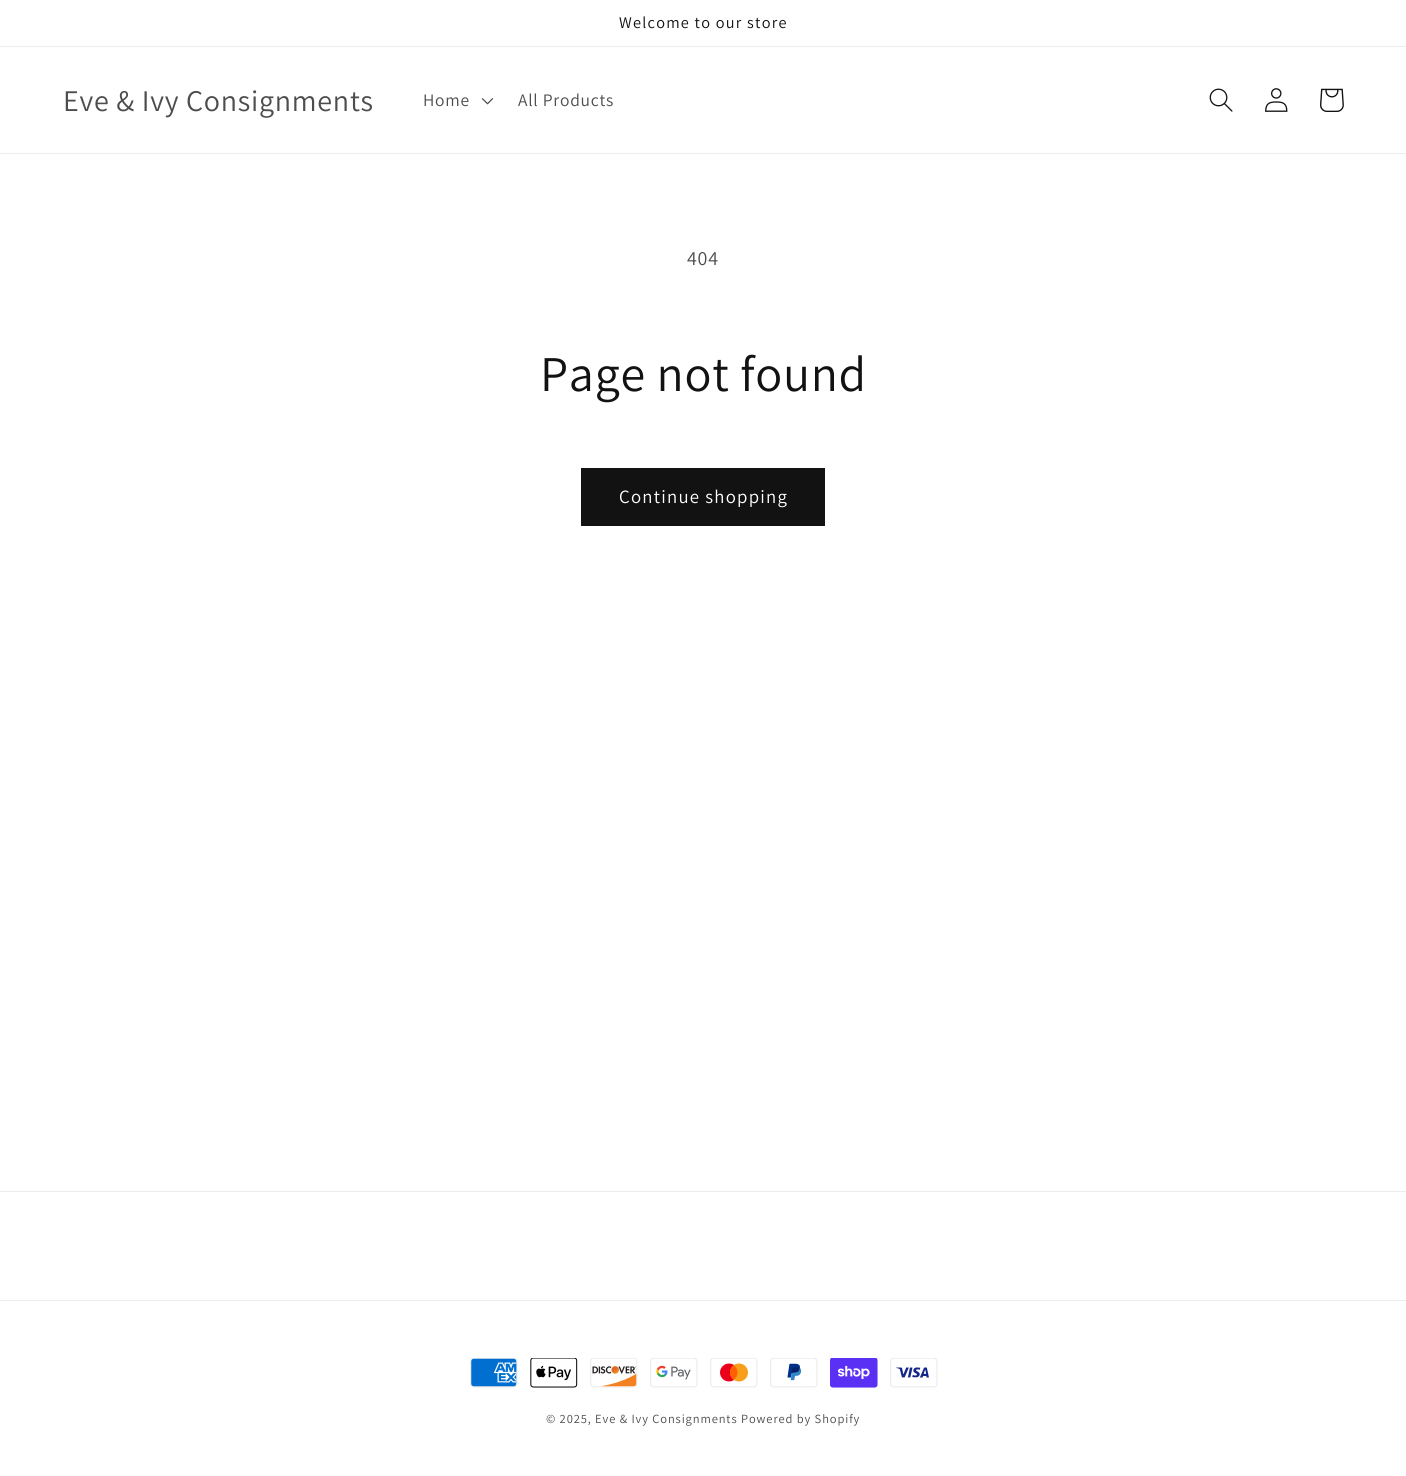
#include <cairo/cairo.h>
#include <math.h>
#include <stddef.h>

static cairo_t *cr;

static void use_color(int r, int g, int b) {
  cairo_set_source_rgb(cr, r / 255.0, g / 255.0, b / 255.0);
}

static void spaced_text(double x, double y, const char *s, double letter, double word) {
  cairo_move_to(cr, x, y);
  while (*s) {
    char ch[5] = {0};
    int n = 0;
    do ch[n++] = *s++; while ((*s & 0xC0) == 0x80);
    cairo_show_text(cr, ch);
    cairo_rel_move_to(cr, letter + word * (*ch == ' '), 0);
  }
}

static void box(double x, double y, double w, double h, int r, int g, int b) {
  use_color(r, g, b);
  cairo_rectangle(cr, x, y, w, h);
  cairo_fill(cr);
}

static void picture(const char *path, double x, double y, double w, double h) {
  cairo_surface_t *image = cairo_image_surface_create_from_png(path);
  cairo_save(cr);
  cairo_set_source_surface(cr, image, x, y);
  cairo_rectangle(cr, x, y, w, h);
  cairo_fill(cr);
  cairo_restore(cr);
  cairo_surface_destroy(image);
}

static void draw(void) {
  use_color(255, 255, 255);
  cairo_paint(cr);
  box(0, 46, 1406, 1, 236, 236, 236);
  box(0, 153, 1406, 1, 236, 236, 236);
  picture("img_01.png", 481, 98, 13, 7);
  picture("img_02.png", 1209, 88, 24, 24);
  picture("img_03.png", 1265, 88, 23, 24);
  picture("img_04.png", 1320, 88, 24, 24);
  box(581, 468, 244, 58, 18, 18, 18);
  box(0, 1191, 1406, 1, 236, 236, 236);
  box(0, 1300, 1406, 1, 236, 236, 236);
  picture("img_05.png", 470, 1358, 48, 30);
  picture("img_06.png", 530, 1358, 48, 30);
  picture("img_07.png", 590, 1358, 48, 30);
  picture("img_08.png", 650, 1358, 48, 30);
  picture("img_09.png", 710, 1358, 48, 30);
  picture("img_10.png", 770, 1358, 48, 30);
  picture("img_11.png", 830, 1358, 48, 30);
  picture("img_12.png", 890, 1358, 48, 30);
  cairo_select_font_face(cr, "Assistant", CAIRO_FONT_SLANT_NORMAL, CAIRO_FONT_WEIGHT_NORMAL);
  cairo_set_font_size(cr, 16.25);
  use_color(18, 18, 18);
  spaced_text(619, 28, "Welcome to our store", 1.25, 0);
  cairo_set_font_size(cr, 30);
  use_color(77, 77, 77);
  spaced_text(63, 111, "Eve & Ivy Consignments", 0.75, 0);
  cairo_set_font_size(cr, 17.5);
  spaced_text(423, 106, "Home", 0.75, 0);
  spaced_text(518, 106, "All Products", 0.75, 0);
  cairo_set_font_size(cr, 20);
  spaced_text(687, 265, "404", 0.75, 0);
  cairo_set_font_size(cr, 50);
  use_color(18, 18, 18);
  spaced_text(540, 391, "Page not found", 0.75, 0);
  cairo_set_font_size(cr, 18.75);
  use_color(255, 255, 255);
  spaced_text(619, 503, "Continue shopping", 1.25, 0);
  cairo_set_font_size(cr, 12.5);
  use_color(77, 77, 77);
  spaced_text(546, 1423, "© 2025, Eve & Ivy Consignments", 0.9, 0);
  spaced_text(741, 1423, "Powered by Shopify", 0.9, 0);
}

int main(void) {
  cairo_surface_t *surface = cairo_image_surface_create(CAIRO_FORMAT_RGB24, 1406, 1476);
  cr = cairo_create(surface);
  cairo_font_options_t *options = cairo_font_options_create();
  cairo_font_options_set_hint_metrics(options, CAIRO_HINT_METRICS_OFF);
  cairo_font_options_set_hint_style(options, CAIRO_HINT_STYLE_NONE);
  cairo_set_font_options(cr, options);
  cairo_set_miter_limit(cr, 4);
  draw();
  cairo_surface_write_to_png(surface, "out.png");
  cairo_font_options_destroy(options);
  cairo_destroy(cr);
  cairo_surface_destroy(surface);
  return 0;
}
